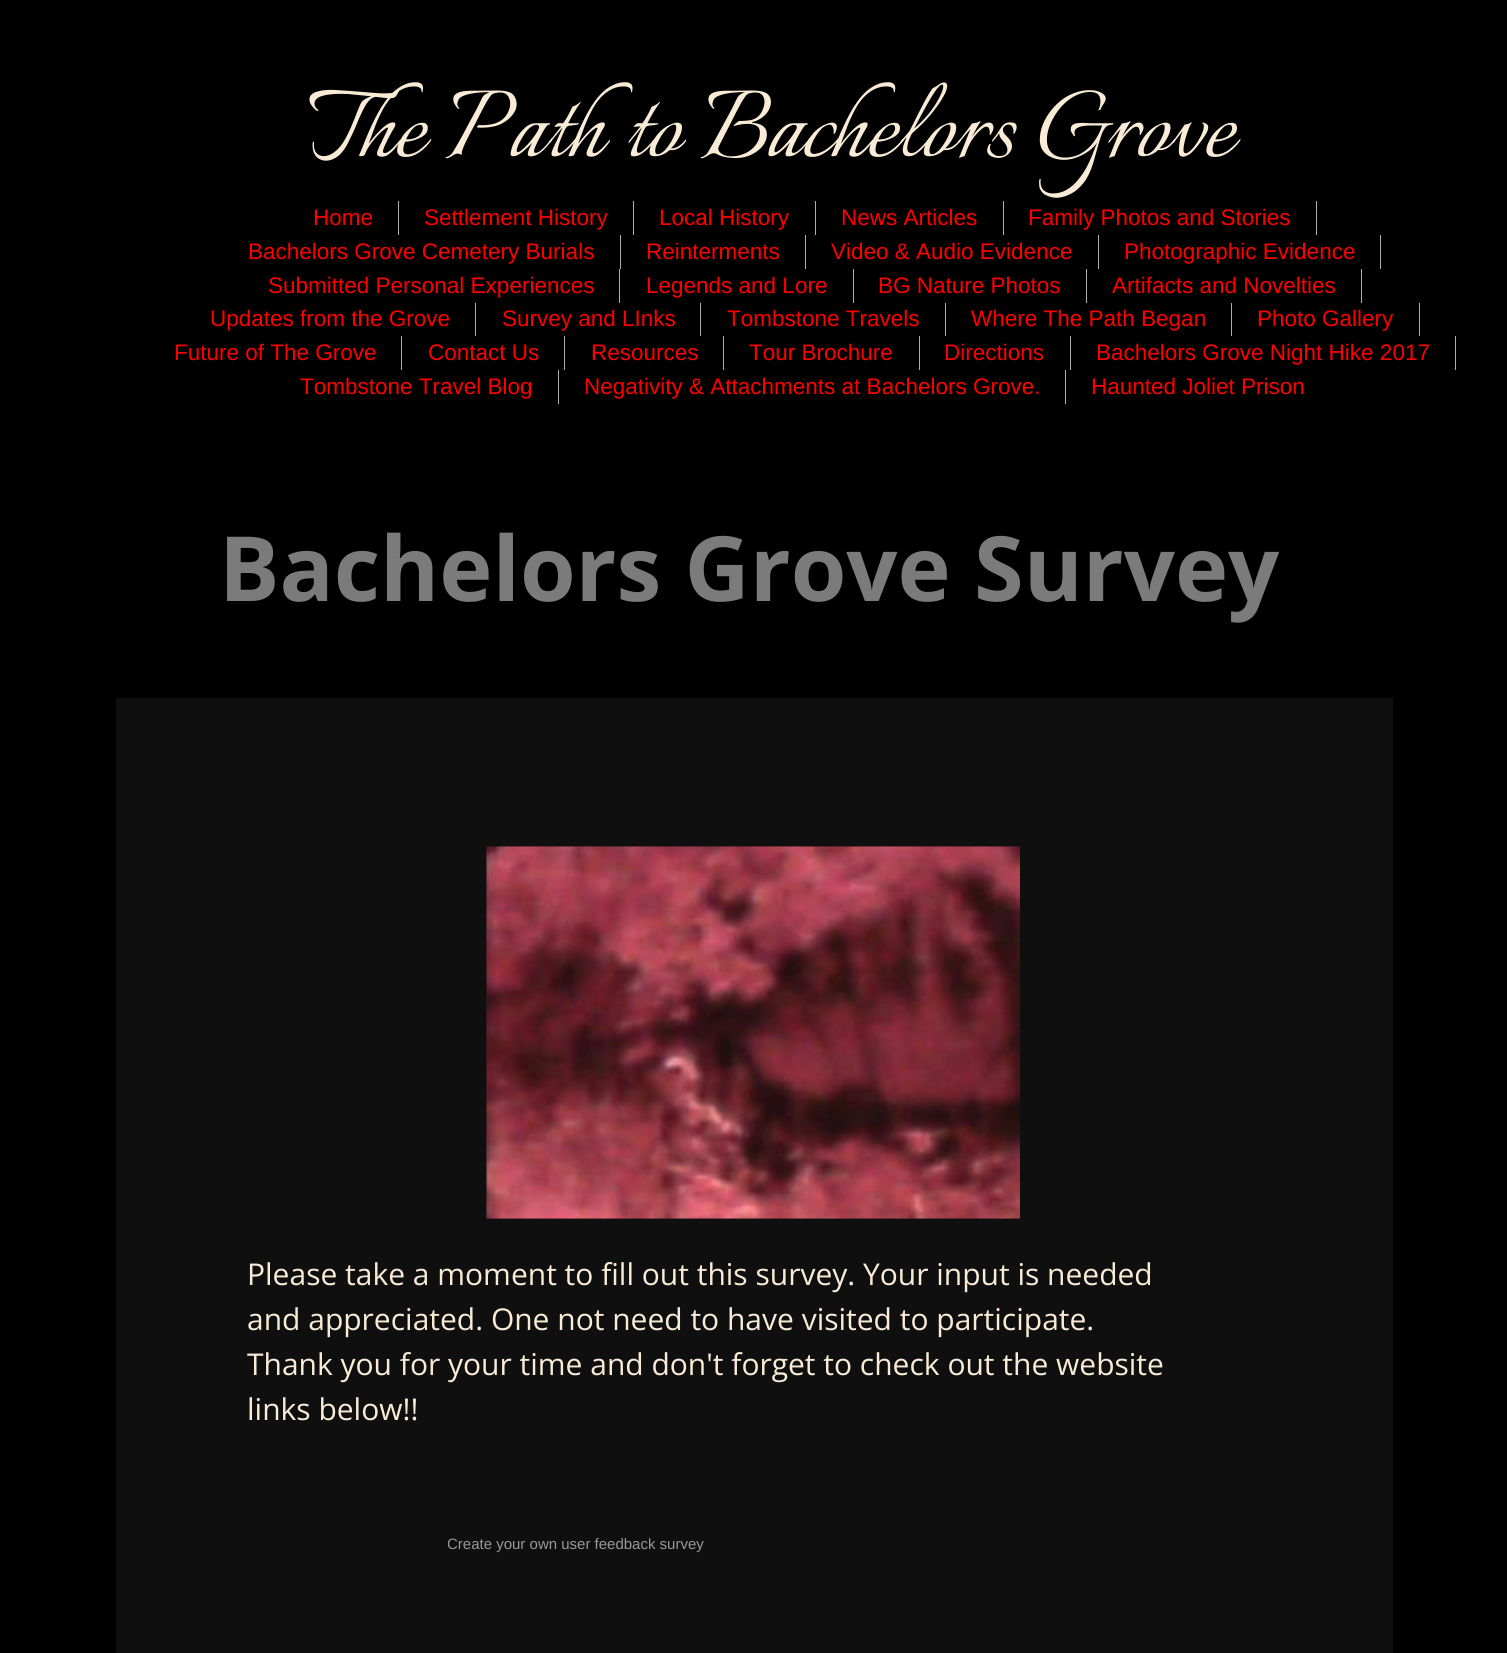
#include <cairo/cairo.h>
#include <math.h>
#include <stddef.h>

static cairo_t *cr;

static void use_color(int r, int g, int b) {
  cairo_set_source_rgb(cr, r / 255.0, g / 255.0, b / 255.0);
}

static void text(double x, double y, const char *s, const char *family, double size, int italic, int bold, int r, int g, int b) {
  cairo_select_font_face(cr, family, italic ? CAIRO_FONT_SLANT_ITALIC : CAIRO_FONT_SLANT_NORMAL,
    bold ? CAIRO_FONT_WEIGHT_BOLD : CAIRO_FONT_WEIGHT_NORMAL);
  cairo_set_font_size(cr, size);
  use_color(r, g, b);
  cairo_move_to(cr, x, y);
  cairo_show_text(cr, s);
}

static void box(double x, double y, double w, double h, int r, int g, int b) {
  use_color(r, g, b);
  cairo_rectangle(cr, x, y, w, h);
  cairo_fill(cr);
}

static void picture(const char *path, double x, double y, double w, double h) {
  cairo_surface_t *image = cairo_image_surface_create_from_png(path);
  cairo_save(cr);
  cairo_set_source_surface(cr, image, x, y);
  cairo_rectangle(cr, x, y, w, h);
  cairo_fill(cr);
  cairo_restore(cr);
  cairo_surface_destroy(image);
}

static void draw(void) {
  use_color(0, 0, 0);
  cairo_paint(cr);
  box(116, 698, 1277, 955, 15, 15, 15);
  box(398, 201, 1, 34, 174, 174, 174);
  box(633, 201, 1, 34, 174, 174, 174);
  box(815, 201, 1, 34, 174, 174, 174);
  box(1003, 201, 1, 34, 174, 174, 174);
  box(1316, 201, 1, 34, 174, 174, 174);
  box(620, 235, 1, 34, 174, 174, 174);
  box(805, 235, 1, 34, 174, 174, 174);
  box(1098, 235, 1, 34, 174, 174, 174);
  box(1380, 235, 1, 34, 174, 174, 174);
  box(619, 269, 1, 34, 174, 174, 174);
  box(853, 269, 1, 34, 174, 174, 174);
  box(1086, 269, 1, 34, 174, 174, 174);
  box(1361, 269, 1, 34, 174, 174, 174);
  box(475, 303, 1, 33, 174, 174, 174);
  box(700, 303, 1, 33, 174, 174, 174);
  box(945, 303, 1, 33, 174, 174, 174);
  box(1231, 303, 1, 33, 174, 174, 174);
  box(1419, 303, 1, 33, 174, 174, 174);
  box(401, 336, 1, 34, 174, 174, 174);
  box(564, 336, 1, 34, 174, 174, 174);
  box(723, 336, 1, 34, 174, 174, 174);
  box(919, 336, 1, 34, 174, 174, 174);
  box(1070, 336, 1, 34, 174, 174, 174);
  box(1455, 336, 1, 34, 174, 174, 174);
  box(558, 370, 1, 34, 174, 174, 174);
  box(1065, 370, 1, 34, 174, 174, 174);
  picture("img_01.png", 486, 846, 534, 373);
  text(308, 156, "The Path to Bachelors Grove", "Italianno", 120, 0, 0, 250, 235, 215);
  text(313, 225, "Home", "Liberation Sans", 22.5, 0, 0, 255, 0, 0);
  text(424, 225, "Settlement History", "Liberation Sans", 22.5, 0, 0, 255, 0, 0);
  text(659, 225, "Local History", "Liberation Sans", 22.5, 0, 0, 255, 0, 0);
  text(841, 225, "News Articles", "Liberation Sans", 22.5, 0, 0, 255, 0, 0);
  text(1028, 225, "Family Photos and Stories", "Liberation Sans", 22.5, 0, 0, 255, 0, 0);
  text(248, 259, "Bachelors Grove Cemetery Burials", "Liberation Sans", 22.5, 0, 0, 255, 0, 0);
  text(646, 259, "Reinterments", "Liberation Sans", 22.5, 0, 0, 255, 0, 0);
  text(831, 259, "Video & Audio Evidence", "Liberation Sans", 22.5, 0, 0, 255, 0, 0);
  text(1124, 259, "Photographic Evidence", "Liberation Sans", 22.5, 0, 0, 255, 0, 0);
  text(268, 293, "Submitted Personal Experiences", "Liberation Sans", 22.5, 0, 0, 255, 0, 0);
  text(646, 293, "Legends and Lore", "Liberation Sans", 22.5, 0, 0, 255, 0, 0);
  text(878, 293, "BG Nature Photos", "Liberation Sans", 22.5, 0, 0, 255, 0, 0);
  text(1112, 293, "Artifacts and Novelties", "Liberation Sans", 22.5, 0, 0, 255, 0, 0);
  text(210, 326, "Updates from the Grove", "Liberation Sans", 22.5, 0, 0, 255, 0, 0);
  text(502, 326, "Survey and LInks", "Liberation Sans", 22.5, 0, 0, 255, 0, 0);
  text(727, 326, "Tombstone Travels", "Liberation Sans", 22.5, 0, 0, 255, 0, 0);
  text(971, 326, "Where The Path Began", "Liberation Sans", 22.5, 0, 0, 255, 0, 0);
  text(1257, 326, "Photo Gallery", "Liberation Sans", 22.5, 0, 0, 255, 0, 0);
  text(174, 360, "Future of The Grove", "Liberation Sans", 22.5, 0, 0, 255, 0, 0);
  text(428, 360, "Contact Us", "Liberation Sans", 22.5, 0, 0, 255, 0, 0);
  text(591, 360, "Resources", "Liberation Sans", 22.5, 0, 0, 255, 0, 0);
  text(749, 360, "Tour Brochure", "Liberation Sans", 22.5, 0, 0, 255, 0, 0);
  text(944, 360, "Directions", "Liberation Sans", 22.5, 0, 0, 255, 0, 0);
  text(1096, 360, "Bachelors Grove Night Hike 2017", "Liberation Sans", 22.5, 0, 0, 255, 0, 0);
  text(300, 394, "Tombstone Travel Blog", "Liberation Sans", 22.5, 0, 0, 255, 0, 0);
  text(584, 394, "Negativity & Attachments at Bachelors Grove.", "Liberation Sans", 22.5, 0, 0, 255, 0, 0);
  text(1091, 394, "Haunted Joliet Prison", "Liberation Sans", 22.5, 0, 0, 255, 0, 0);
  text(219, 601, "Bachelors Grove Survey", "Open Sans", 90, 0, 1, 124, 123, 123);
  text(247, 1285, "Please take a moment to fill out this survey. Your input is needed", "Open Sans", 30, 0, 0, 250, 235, 215);
  text(247, 1330, "and appreciated. One not need to have visited to participate.", "Open Sans", 30, 0, 0, 250, 235, 215);
  text(247, 1375, "Thank you for your time and don't forget to check out the website", "Open Sans", 30, 0, 0, 250, 235, 215);
  text(247, 1420, "links below!!", "Open Sans", 30, 0, 0, 250, 235, 215);
  cairo_save(cr);
  cairo_rectangle(cr, 448, 1529, 592, 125);
  cairo_clip(cr);
  text(447, 1549, "Create your own user feedback survey", "Liberation Sans", 15, 0, 0, 153, 153, 153);
  cairo_restore(cr);
}

int main(void) {
  cairo_surface_t *surface = cairo_image_surface_create(CAIRO_FORMAT_RGB24, 1507, 1653);
  cr = cairo_create(surface);
  cairo_font_options_t *options = cairo_font_options_create();
  cairo_font_options_set_hint_metrics(options, CAIRO_HINT_METRICS_OFF);
  cairo_font_options_set_hint_style(options, CAIRO_HINT_STYLE_NONE);
  cairo_set_font_options(cr, options);
  cairo_set_miter_limit(cr, 4);
  draw();
  cairo_surface_write_to_png(surface, "out.png");
  cairo_font_options_destroy(options);
  cairo_destroy(cr);
  cairo_surface_destroy(surface);
  return 0;
}
